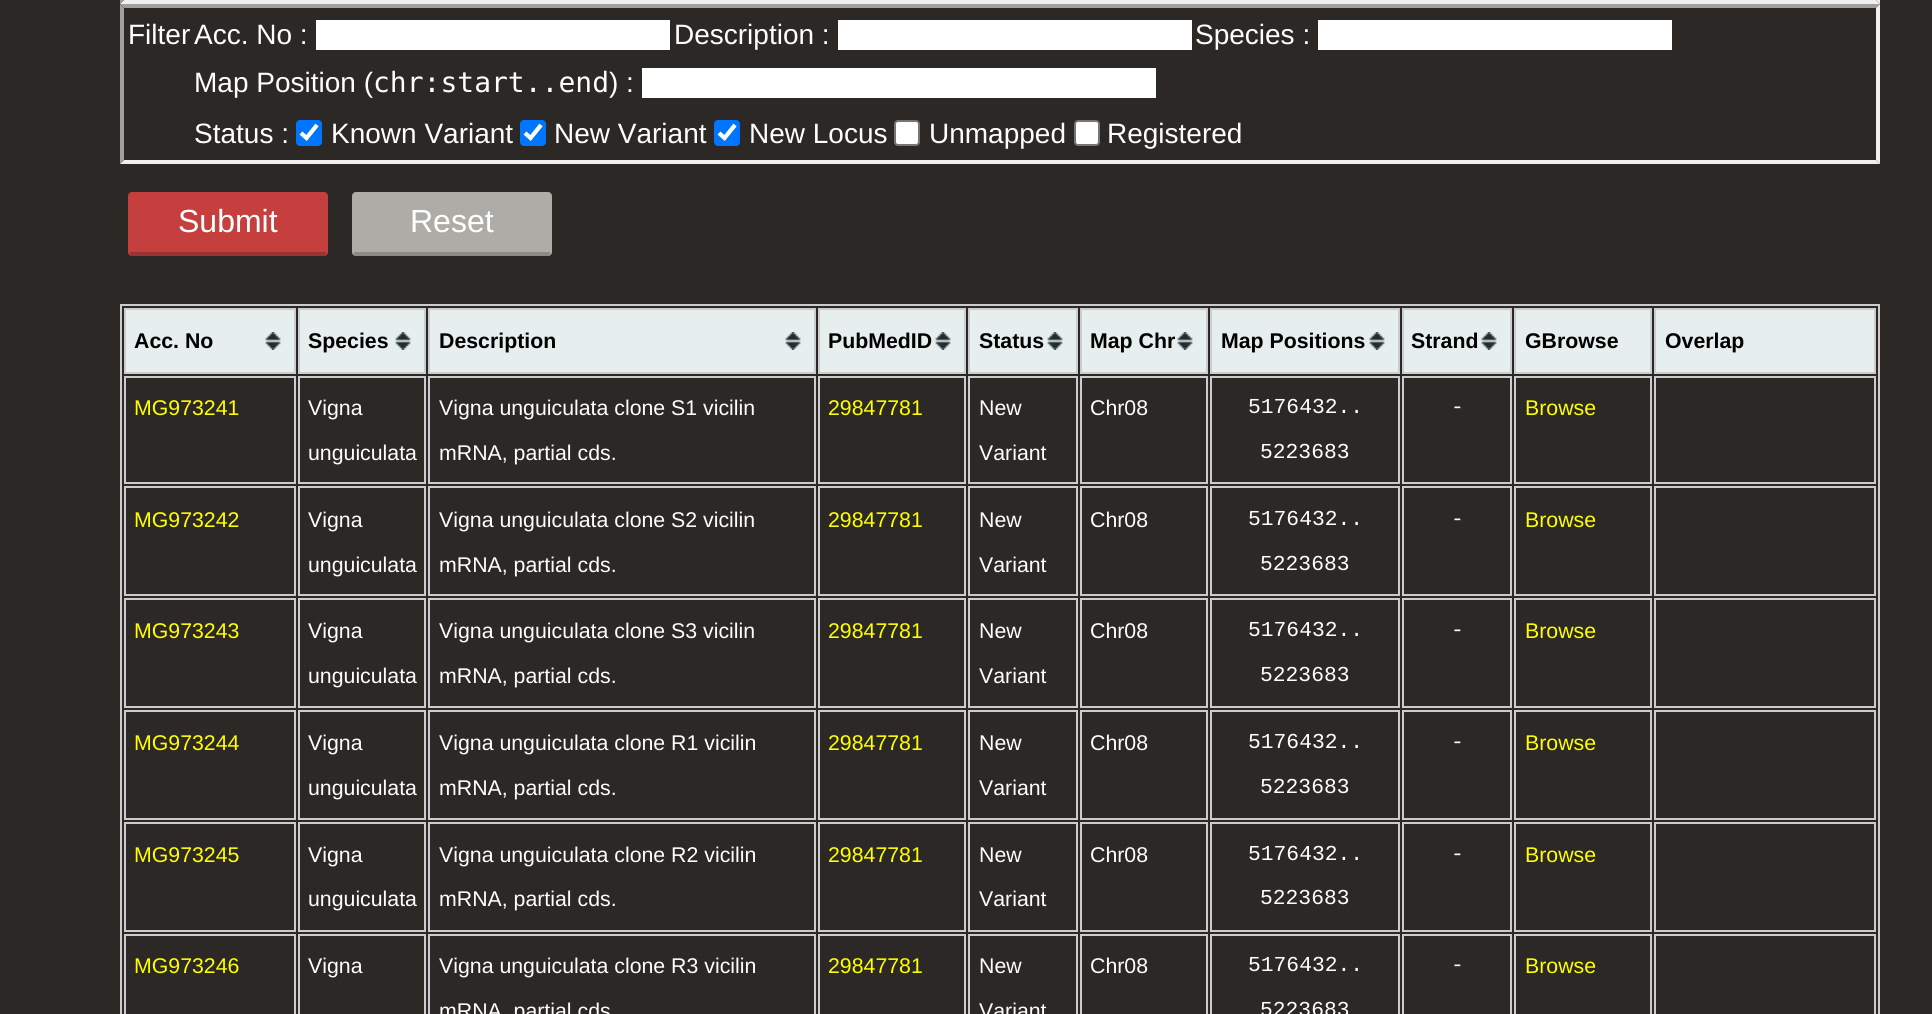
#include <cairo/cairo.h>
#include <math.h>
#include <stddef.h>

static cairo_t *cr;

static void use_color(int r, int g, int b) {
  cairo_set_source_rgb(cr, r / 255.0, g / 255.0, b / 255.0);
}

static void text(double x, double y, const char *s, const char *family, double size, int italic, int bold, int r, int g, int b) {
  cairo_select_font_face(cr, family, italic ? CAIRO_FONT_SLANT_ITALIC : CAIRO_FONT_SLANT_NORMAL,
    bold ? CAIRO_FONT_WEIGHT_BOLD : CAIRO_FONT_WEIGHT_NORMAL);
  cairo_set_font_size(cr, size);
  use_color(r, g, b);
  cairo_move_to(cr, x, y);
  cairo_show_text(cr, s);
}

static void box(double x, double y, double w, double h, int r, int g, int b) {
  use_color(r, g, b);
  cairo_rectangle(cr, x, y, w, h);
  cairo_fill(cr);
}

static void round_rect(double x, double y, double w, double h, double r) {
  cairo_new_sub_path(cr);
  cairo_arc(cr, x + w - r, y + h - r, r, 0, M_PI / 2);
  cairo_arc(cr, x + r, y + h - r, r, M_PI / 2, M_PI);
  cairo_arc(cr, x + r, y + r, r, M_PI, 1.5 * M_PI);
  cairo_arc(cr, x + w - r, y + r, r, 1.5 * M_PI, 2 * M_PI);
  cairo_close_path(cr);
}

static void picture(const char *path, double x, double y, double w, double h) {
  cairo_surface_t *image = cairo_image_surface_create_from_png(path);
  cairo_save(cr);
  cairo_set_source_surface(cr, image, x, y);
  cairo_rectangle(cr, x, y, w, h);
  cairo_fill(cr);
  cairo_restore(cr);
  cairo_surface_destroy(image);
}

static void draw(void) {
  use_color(43, 40, 37);
  cairo_paint(cr);
  use_color(239, 239, 239);
  cairo_new_path(cr);
  cairo_move_to(cr, 1880, -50);
  cairo_line_to(cr, 1880, 4);
  cairo_line_to(cr, 1876, 0);
  cairo_line_to(cr, 1876, -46);
  cairo_close_path(cr);
  cairo_fill(cr);
  cairo_new_path(cr);
  cairo_move_to(cr, 1880, 4);
  cairo_line_to(cr, 120, 4);
  cairo_line_to(cr, 124, 0);
  cairo_line_to(cr, 1876, 0);
  cairo_close_path(cr);
  cairo_fill(cr);
  use_color(159, 159, 159);
  cairo_new_path(cr);
  cairo_move_to(cr, 120, 4);
  cairo_line_to(cr, 120, -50);
  cairo_line_to(cr, 124, -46);
  cairo_line_to(cr, 124, 0);
  cairo_close_path(cr);
  cairo_fill(cr);
  cairo_new_path(cr);
  cairo_move_to(cr, 120, 4);
  cairo_line_to(cr, 1880, 4);
  cairo_line_to(cr, 1876, 8);
  cairo_line_to(cr, 124, 8);
  cairo_close_path(cr);
  cairo_fill(cr);
  use_color(239, 239, 239);
  cairo_new_path(cr);
  cairo_move_to(cr, 1880, 4);
  cairo_line_to(cr, 1880, 164);
  cairo_line_to(cr, 1876, 160);
  cairo_line_to(cr, 1876, 8);
  cairo_close_path(cr);
  cairo_fill(cr);
  cairo_new_path(cr);
  cairo_move_to(cr, 1880, 164);
  cairo_line_to(cr, 120, 164);
  cairo_line_to(cr, 124, 160);
  cairo_line_to(cr, 1876, 160);
  cairo_close_path(cr);
  cairo_fill(cr);
  use_color(159, 159, 159);
  cairo_new_path(cr);
  cairo_move_to(cr, 120, 164);
  cairo_line_to(cr, 120, 4);
  cairo_line_to(cr, 124, 8);
  cairo_line_to(cr, 124, 160);
  cairo_close_path(cr);
  cairo_fill(cr);
  box(316, 20, 354, 30, 255, 255, 255);
  box(838, 20, 354, 30, 255, 255, 255);
  box(1318, 20, 354, 30, 255, 255, 255);
  box(642, 68, 514, 30, 255, 255, 255);
  use_color(0, 117, 255);
  round_rect(296, 120, 26, 26, 4);
  cairo_fill(cr);
  cairo_new_path(cr);
  cairo_move_to(cr, 301, 133);
  cairo_line_to(cr, 306.5, 138);
  cairo_line_to(cr, 317, 125);
  use_color(255, 255, 255);
  cairo_set_line_width(cr, 4.2);
  cairo_stroke(cr);
  use_color(0, 117, 255);
  round_rect(520, 120, 26, 26, 4);
  cairo_fill(cr);
  cairo_new_path(cr);
  cairo_move_to(cr, 525, 133);
  cairo_line_to(cr, 530.5, 138);
  cairo_line_to(cr, 541, 125);
  use_color(255, 255, 255);
  cairo_stroke(cr);
  use_color(0, 117, 255);
  round_rect(714, 120, 26, 26, 4);
  cairo_fill(cr);
  cairo_new_path(cr);
  cairo_move_to(cr, 719, 133);
  cairo_line_to(cr, 724.5, 138);
  cairo_line_to(cr, 735, 125);
  use_color(255, 255, 255);
  cairo_stroke(cr);
  round_rect(895, 121, 24, 24, 3);
  cairo_fill_preserve(cr);
  use_color(118, 118, 118);
  cairo_set_line_width(cr, 2);
  cairo_stroke(cr);
  use_color(255, 255, 255);
  round_rect(1075, 121, 24, 24, 3);
  cairo_fill_preserve(cr);
  use_color(118, 118, 118);
  cairo_stroke(cr);
  use_color(197, 63, 63);
  round_rect(128, 192, 200, 64, 4);
  cairo_fill(cr);
  box(130, 252, 196, 4, 158, 50, 50);
  use_color(174, 172, 167);
  round_rect(352, 192, 200, 64, 4);
  cairo_fill(cr);
  box(354, 252, 196, 4, 139, 138, 134);
  cairo_rectangle(cr, 121, 305, 1758, 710);
  use_color(204, 204, 204);
  cairo_stroke(cr);
  box(126, 310, 168, 62, 230, 238, 238);
  picture("img_01.png", 265, 332, 16, 18);
  cairo_rectangle(cr, 125, 309, 170, 64);
  use_color(204, 204, 204);
  cairo_stroke(cr);
  box(300, 310, 124, 62, 230, 238, 238);
  picture("img_01.png", 395, 332, 16, 18);
  cairo_rectangle(cr, 299, 309, 126, 64);
  use_color(204, 204, 204);
  cairo_stroke(cr);
  box(430, 310, 384, 62, 230, 238, 238);
  picture("img_01.png", 785, 332, 16, 18);
  cairo_rectangle(cr, 429, 309, 386, 64);
  use_color(204, 204, 204);
  cairo_stroke(cr);
  box(820, 310, 144, 62, 230, 238, 238);
  picture("img_01.png", 935, 332, 16, 18);
  cairo_rectangle(cr, 819, 309, 146, 64);
  use_color(204, 204, 204);
  cairo_stroke(cr);
  box(970, 310, 106, 62, 230, 238, 238);
  picture("img_01.png", 1047, 332, 16, 18);
  cairo_rectangle(cr, 969, 309, 108, 64);
  use_color(204, 204, 204);
  cairo_stroke(cr);
  box(1082, 310, 124, 62, 230, 238, 238);
  picture("img_01.png", 1177, 332, 16, 18);
  cairo_rectangle(cr, 1081, 309, 126, 64);
  use_color(204, 204, 204);
  cairo_stroke(cr);
  box(1212, 310, 186, 62, 230, 238, 238);
  picture("img_01.png", 1369, 332, 16, 18);
  cairo_rectangle(cr, 1211, 309, 188, 64);
  use_color(204, 204, 204);
  cairo_stroke(cr);
  box(1404, 310, 106, 62, 230, 238, 238);
  picture("img_01.png", 1481, 332, 16, 18);
  cairo_rectangle(cr, 1403, 309, 108, 64);
  use_color(204, 204, 204);
  cairo_stroke(cr);
  use_color(230, 238, 238);
  cairo_rectangle(cr, 1515, 309, 136, 64);
  cairo_fill_preserve(cr);
  use_color(204, 204, 204);
  cairo_stroke(cr);
  use_color(230, 238, 238);
  cairo_rectangle(cr, 1655, 309, 220, 64);
  cairo_fill_preserve(cr);
  use_color(204, 204, 204);
  cairo_stroke(cr);
  cairo_rectangle(cr, 125, 377, 170, 106);
  cairo_stroke(cr);
  cairo_rectangle(cr, 299, 377, 126, 106);
  cairo_stroke(cr);
  cairo_rectangle(cr, 429, 377, 386, 106);
  cairo_stroke(cr);
  cairo_rectangle(cr, 819, 377, 146, 106);
  cairo_stroke(cr);
  cairo_rectangle(cr, 969, 377, 108, 106);
  cairo_stroke(cr);
  cairo_rectangle(cr, 1081, 377, 126, 106);
  cairo_stroke(cr);
  cairo_rectangle(cr, 1211, 377, 188, 106);
  cairo_stroke(cr);
  cairo_rectangle(cr, 1403, 377, 108, 106);
  cairo_stroke(cr);
  cairo_rectangle(cr, 1515, 377, 136, 106);
  cairo_stroke(cr);
  cairo_rectangle(cr, 1655, 377, 220, 106);
  cairo_stroke(cr);
  cairo_rectangle(cr, 125, 487, 170, 108);
  cairo_stroke(cr);
  cairo_rectangle(cr, 299, 487, 126, 108);
  cairo_stroke(cr);
  cairo_rectangle(cr, 429, 487, 386, 108);
  cairo_stroke(cr);
  cairo_rectangle(cr, 819, 487, 146, 108);
  cairo_stroke(cr);
  cairo_rectangle(cr, 969, 487, 108, 108);
  cairo_stroke(cr);
  cairo_rectangle(cr, 1081, 487, 126, 108);
  cairo_stroke(cr);
  cairo_rectangle(cr, 1211, 487, 188, 108);
  cairo_stroke(cr);
  cairo_rectangle(cr, 1403, 487, 108, 108);
  cairo_stroke(cr);
  cairo_rectangle(cr, 1515, 487, 136, 108);
  cairo_stroke(cr);
  cairo_rectangle(cr, 1655, 487, 220, 108);
  cairo_stroke(cr);
  cairo_rectangle(cr, 125, 599, 170, 108);
  cairo_stroke(cr);
  cairo_rectangle(cr, 299, 599, 126, 108);
  cairo_stroke(cr);
  cairo_rectangle(cr, 429, 599, 386, 108);
  cairo_stroke(cr);
  cairo_rectangle(cr, 819, 599, 146, 108);
  cairo_stroke(cr);
  cairo_rectangle(cr, 969, 599, 108, 108);
  cairo_stroke(cr);
  cairo_rectangle(cr, 1081, 599, 126, 108);
  cairo_stroke(cr);
  cairo_rectangle(cr, 1211, 599, 188, 108);
  cairo_stroke(cr);
  cairo_rectangle(cr, 1403, 599, 108, 108);
  cairo_stroke(cr);
  cairo_rectangle(cr, 1515, 599, 136, 108);
  cairo_stroke(cr);
  cairo_rectangle(cr, 1655, 599, 220, 108);
  cairo_stroke(cr);
  cairo_rectangle(cr, 125, 711, 170, 108);
  cairo_stroke(cr);
  cairo_rectangle(cr, 299, 711, 126, 108);
  cairo_stroke(cr);
  cairo_rectangle(cr, 429, 711, 386, 108);
  cairo_stroke(cr);
  cairo_rectangle(cr, 819, 711, 146, 108);
  cairo_stroke(cr);
  cairo_rectangle(cr, 969, 711, 108, 108);
  cairo_stroke(cr);
  cairo_rectangle(cr, 1081, 711, 126, 108);
  cairo_stroke(cr);
  cairo_rectangle(cr, 1211, 711, 188, 108);
  cairo_stroke(cr);
  cairo_rectangle(cr, 1403, 711, 108, 108);
  cairo_stroke(cr);
  cairo_rectangle(cr, 1515, 711, 136, 108);
  cairo_stroke(cr);
  cairo_rectangle(cr, 1655, 711, 220, 108);
  cairo_stroke(cr);
  cairo_rectangle(cr, 125, 823, 170, 108);
  cairo_stroke(cr);
  cairo_rectangle(cr, 299, 823, 126, 108);
  cairo_stroke(cr);
  cairo_rectangle(cr, 429, 823, 386, 108);
  cairo_stroke(cr);
  cairo_rectangle(cr, 819, 823, 146, 108);
  cairo_stroke(cr);
  cairo_rectangle(cr, 969, 823, 108, 108);
  cairo_stroke(cr);
  cairo_rectangle(cr, 1081, 823, 126, 108);
  cairo_stroke(cr);
  cairo_rectangle(cr, 1211, 823, 188, 108);
  cairo_stroke(cr);
  cairo_rectangle(cr, 1403, 823, 108, 108);
  cairo_stroke(cr);
  cairo_rectangle(cr, 1515, 823, 136, 108);
  cairo_stroke(cr);
  cairo_rectangle(cr, 1655, 823, 220, 108);
  cairo_stroke(cr);
  cairo_rectangle(cr, 125, 935, 170, 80);
  cairo_stroke(cr);
  cairo_rectangle(cr, 299, 935, 126, 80);
  cairo_stroke(cr);
  cairo_rectangle(cr, 429, 935, 386, 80);
  cairo_stroke(cr);
  cairo_rectangle(cr, 819, 935, 146, 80);
  cairo_stroke(cr);
  cairo_rectangle(cr, 969, 935, 108, 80);
  cairo_stroke(cr);
  cairo_rectangle(cr, 1081, 935, 126, 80);
  cairo_stroke(cr);
  cairo_rectangle(cr, 1211, 935, 188, 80);
  cairo_stroke(cr);
  cairo_rectangle(cr, 1403, 935, 108, 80);
  cairo_stroke(cr);
  cairo_rectangle(cr, 1515, 935, 136, 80);
  cairo_stroke(cr);
  cairo_rectangle(cr, 1655, 935, 220, 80);
  cairo_stroke(cr);
  text(128, 44, "Filter", "Liberation Sans", 28, 0, 0, 255, 255, 255);
  text(194, 44, "Acc. No :", "Liberation Sans", 28, 0, 0, 255, 255, 255);
  text(674, 44, "Description :", "Liberation Sans", 28, 0, 0, 255, 255, 255);
  text(1195, 44, "Species :", "Liberation Sans", 28, 0, 0, 255, 255, 255);
  text(194, 92, "Map Position (", "Liberation Sans", 28, 0, 0, 255, 255, 255);
  text(373, 92, "chr:start..end", "DejaVu Sans Mono", 28, 0, 0, 255, 255, 255);
  text(609, 92, ") :", "Liberation Sans", 28, 0, 0, 255, 255, 255);
  text(194, 143, "Status :", "Liberation Sans", 28, 0, 0, 255, 255, 255);
  text(331, 143, "Known Variant", "Liberation Sans", 28, 0, 0, 255, 255, 255);
  text(554, 143, "New Variant", "Liberation Sans", 28, 0, 0, 255, 255, 255);
  text(749, 143, "New Locus", "Liberation Sans", 28, 0, 0, 255, 255, 255);
  text(929, 143, "Unmapped", "Liberation Sans", 28, 0, 0, 255, 255, 255);
  text(1107, 143, "Registered", "Liberation Sans", 28, 0, 0, 255, 255, 255);
  text(178, 232, "Submit", "Liberation Sans", 32, 0, 0, 255, 255, 255);
  text(410, 232, "Reset", "Liberation Sans", 32, 0, 0, 255, 255, 255);
  text(134, 348, "Acc. No", "Liberation Sans", 21.3, 0, 1, 0, 0, 0);
  text(308, 348, "Species", "Liberation Sans", 21.3, 0, 1, 0, 0, 0);
  text(439, 348, "Description", "Liberation Sans", 21.3, 0, 1, 0, 0, 0);
  text(828, 348, "PubMedID", "Liberation Sans", 21.3, 0, 1, 0, 0, 0);
  text(979, 348, "Status", "Liberation Sans", 21.3, 0, 1, 0, 0, 0);
  text(1090, 348, "Map Chr", "Liberation Sans", 21.3, 0, 1, 0, 0, 0);
  text(1221, 348, "Map Positions", "Liberation Sans", 21.3, 0, 1, 0, 0, 0);
  text(1411, 348, "Strand", "Liberation Sans", 21.3, 0, 1, 0, 0, 0);
  text(1525, 348, "GBrowse", "Liberation Sans", 21.3, 0, 1, 0, 0, 0);
  text(1665, 348, "Overlap", "Liberation Sans", 21.3, 0, 1, 0, 0, 0);
  text(134, 415, "MG973241", "Liberation Sans", 21.3, 0, 0, 255, 255, 0);
  text(308, 415, "Vigna", "Liberation Sans", 21.3, 0, 0, 255, 255, 255);
  text(308, 460, "unguiculata", "Liberation Sans", 21.3, 0, 0, 255, 255, 255);
  text(439, 415, "Vigna unguiculata clone S1 vicilin", "Liberation Sans", 21.3, 0, 0, 255, 255, 255);
  text(439, 460, "mRNA, partial cds.", "Liberation Sans", 21.3, 0, 0, 255, 255, 255);
  text(828, 415, "29847781", "Liberation Sans", 21.3, 0, 0, 255, 255, 0);
  text(979, 415, "New", "Liberation Sans", 21.3, 0, 0, 255, 255, 255);
  text(979, 460, "Variant", "Liberation Sans", 21.3, 0, 0, 255, 255, 255);
  text(1090, 415, "Chr08", "Liberation Sans", 21.3, 0, 0, 255, 255, 255);
  text(1248, 413, "5176432..", "Liberation Mono", 21.3, 0, 0, 255, 255, 255);
  text(1260, 458, "5223683", "Liberation Mono", 21.3, 0, 0, 255, 255, 255);
  text(1451, 413, "-", "Liberation Mono", 21.3, 0, 0, 255, 255, 255);
  text(1525, 415, "Browse", "Liberation Sans", 21.3, 0, 0, 255, 255, 0);
  text(134, 527, "MG973242", "Liberation Sans", 21.3, 0, 0, 255, 255, 0);
  text(308, 527, "Vigna", "Liberation Sans", 21.3, 0, 0, 255, 255, 255);
  text(308, 572, "unguiculata", "Liberation Sans", 21.3, 0, 0, 255, 255, 255);
  text(439, 527, "Vigna unguiculata clone S2 vicilin", "Liberation Sans", 21.3, 0, 0, 255, 255, 255);
  text(439, 572, "mRNA, partial cds.", "Liberation Sans", 21.3, 0, 0, 255, 255, 255);
  text(828, 527, "29847781", "Liberation Sans", 21.3, 0, 0, 255, 255, 0);
  text(979, 527, "New", "Liberation Sans", 21.3, 0, 0, 255, 255, 255);
  text(979, 572, "Variant", "Liberation Sans", 21.3, 0, 0, 255, 255, 255);
  text(1090, 527, "Chr08", "Liberation Sans", 21.3, 0, 0, 255, 255, 255);
  text(1248, 525, "5176432..", "Liberation Mono", 21.3, 0, 0, 255, 255, 255);
  text(1260, 570, "5223683", "Liberation Mono", 21.3, 0, 0, 255, 255, 255);
  text(1451, 525, "-", "Liberation Mono", 21.3, 0, 0, 255, 255, 255);
  text(1525, 527, "Browse", "Liberation Sans", 21.3, 0, 0, 255, 255, 0);
  text(134, 638, "MG973243", "Liberation Sans", 21.3, 0, 0, 255, 255, 0);
  text(308, 638, "Vigna", "Liberation Sans", 21.3, 0, 0, 255, 255, 255);
  text(308, 683, "unguiculata", "Liberation Sans", 21.3, 0, 0, 255, 255, 255);
  text(439, 638, "Vigna unguiculata clone S3 vicilin", "Liberation Sans", 21.3, 0, 0, 255, 255, 255);
  text(439, 683, "mRNA, partial cds.", "Liberation Sans", 21.3, 0, 0, 255, 255, 255);
  text(828, 638, "29847781", "Liberation Sans", 21.3, 0, 0, 255, 255, 0);
  text(979, 638, "New", "Liberation Sans", 21.3, 0, 0, 255, 255, 255);
  text(979, 683, "Variant", "Liberation Sans", 21.3, 0, 0, 255, 255, 255);
  text(1090, 638, "Chr08", "Liberation Sans", 21.3, 0, 0, 255, 255, 255);
  text(1248, 636, "5176432..", "Liberation Mono", 21.3, 0, 0, 255, 255, 255);
  text(1260, 681, "5223683", "Liberation Mono", 21.3, 0, 0, 255, 255, 255);
  text(1451, 636, "-", "Liberation Mono", 21.3, 0, 0, 255, 255, 255);
  text(1525, 638, "Browse", "Liberation Sans", 21.3, 0, 0, 255, 255, 0);
  text(134, 750, "MG973244", "Liberation Sans", 21.3, 0, 0, 255, 255, 0);
  text(308, 750, "Vigna", "Liberation Sans", 21.3, 0, 0, 255, 255, 255);
  text(308, 795, "unguiculata", "Liberation Sans", 21.3, 0, 0, 255, 255, 255);
  text(439, 750, "Vigna unguiculata clone R1 vicilin", "Liberation Sans", 21.3, 0, 0, 255, 255, 255);
  text(439, 795, "mRNA, partial cds.", "Liberation Sans", 21.3, 0, 0, 255, 255, 255);
  text(828, 750, "29847781", "Liberation Sans", 21.3, 0, 0, 255, 255, 0);
  text(979, 750, "New", "Liberation Sans", 21.3, 0, 0, 255, 255, 255);
  text(979, 795, "Variant", "Liberation Sans", 21.3, 0, 0, 255, 255, 255);
  text(1090, 750, "Chr08", "Liberation Sans", 21.3, 0, 0, 255, 255, 255);
  text(1248, 748, "5176432..", "Liberation Mono", 21.3, 0, 0, 255, 255, 255);
  text(1260, 793, "5223683", "Liberation Mono", 21.3, 0, 0, 255, 255, 255);
  text(1451, 748, "-", "Liberation Mono", 21.3, 0, 0, 255, 255, 255);
  text(1525, 750, "Browse", "Liberation Sans", 21.3, 0, 0, 255, 255, 0);
  text(134, 862, "MG973245", "Liberation Sans", 21.3, 0, 0, 255, 255, 0);
  text(308, 862, "Vigna", "Liberation Sans", 21.3, 0, 0, 255, 255, 255);
  text(308, 906, "unguiculata", "Liberation Sans", 21.3, 0, 0, 255, 255, 255);
  text(439, 862, "Vigna unguiculata clone R2 vicilin", "Liberation Sans", 21.3, 0, 0, 255, 255, 255);
  text(439, 906, "mRNA, partial cds.", "Liberation Sans", 21.3, 0, 0, 255, 255, 255);
  text(828, 862, "29847781", "Liberation Sans", 21.3, 0, 0, 255, 255, 0);
  text(979, 862, "New", "Liberation Sans", 21.3, 0, 0, 255, 255, 255);
  text(979, 906, "Variant", "Liberation Sans", 21.3, 0, 0, 255, 255, 255);
  text(1090, 862, "Chr08", "Liberation Sans", 21.3, 0, 0, 255, 255, 255);
  text(1248, 860, "5176432..", "Liberation Mono", 21.3, 0, 0, 255, 255, 255);
  text(1260, 904, "5223683", "Liberation Mono", 21.3, 0, 0, 255, 255, 255);
  text(1451, 860, "-", "Liberation Mono", 21.3, 0, 0, 255, 255, 255);
  text(1525, 862, "Browse", "Liberation Sans", 21.3, 0, 0, 255, 255, 0);
  text(134, 973, "MG973246", "Liberation Sans", 21.3, 0, 0, 255, 255, 0);
  text(308, 973, "Vigna", "Liberation Sans", 21.3, 0, 0, 255, 255, 255);
  text(439, 973, "Vigna unguiculata clone R3 vicilin", "Liberation Sans", 21.3, 0, 0, 255, 255, 255);
  text(439, 1018, "mRNA, partial cds", "Liberation Sans", 21.3, 0, 0, 255, 255, 255);
  text(828, 973, "29847781", "Liberation Sans", 21.3, 0, 0, 255, 255, 0);
  text(979, 973, "New", "Liberation Sans", 21.3, 0, 0, 255, 255, 255);
  text(979, 1018, "Variant", "Liberation Sans", 21.3, 0, 0, 255, 255, 255);
  text(1090, 973, "Chr08", "Liberation Sans", 21.3, 0, 0, 255, 255, 255);
  text(1248, 971, "5176432..", "Liberation Mono", 21.3, 0, 0, 255, 255, 255);
  text(1260, 1016, "5223683", "Liberation Mono", 21.3, 0, 0, 255, 255, 255);
  text(1451, 971, "-", "Liberation Mono", 21.3, 0, 0, 255, 255, 255);
  text(1525, 973, "Browse", "Liberation Sans", 21.3, 0, 0, 255, 255, 0);
}

int main(void) {
  cairo_surface_t *surface = cairo_image_surface_create(CAIRO_FORMAT_RGB24, 1932, 1014);
  cr = cairo_create(surface);
  cairo_font_options_t *options = cairo_font_options_create();
  cairo_font_options_set_hint_metrics(options, CAIRO_HINT_METRICS_OFF);
  cairo_font_options_set_hint_style(options, CAIRO_HINT_STYLE_NONE);
  cairo_set_font_options(cr, options);
  cairo_set_miter_limit(cr, 4);
  draw();
  cairo_surface_write_to_png(surface, "out.png");
  cairo_font_options_destroy(options);
  cairo_destroy(cr);
  cairo_surface_destroy(surface);
  return 0;
}
